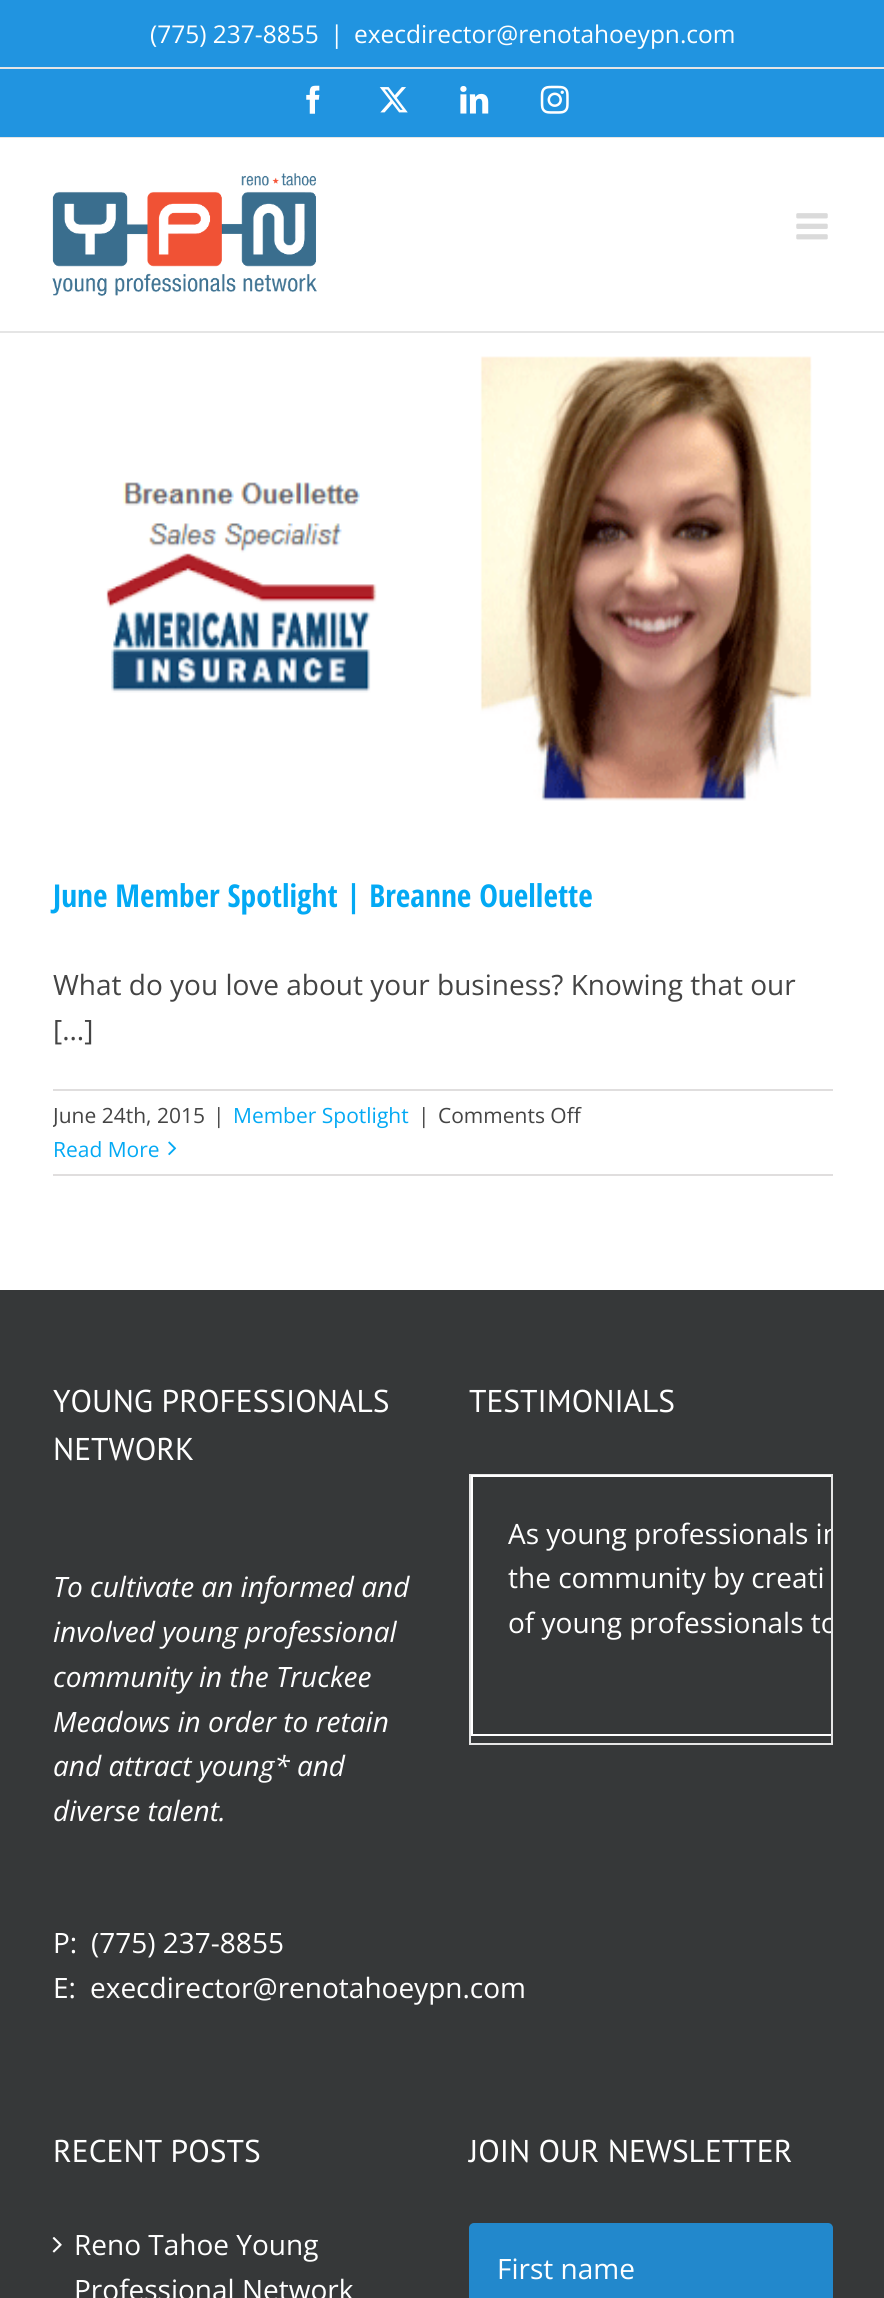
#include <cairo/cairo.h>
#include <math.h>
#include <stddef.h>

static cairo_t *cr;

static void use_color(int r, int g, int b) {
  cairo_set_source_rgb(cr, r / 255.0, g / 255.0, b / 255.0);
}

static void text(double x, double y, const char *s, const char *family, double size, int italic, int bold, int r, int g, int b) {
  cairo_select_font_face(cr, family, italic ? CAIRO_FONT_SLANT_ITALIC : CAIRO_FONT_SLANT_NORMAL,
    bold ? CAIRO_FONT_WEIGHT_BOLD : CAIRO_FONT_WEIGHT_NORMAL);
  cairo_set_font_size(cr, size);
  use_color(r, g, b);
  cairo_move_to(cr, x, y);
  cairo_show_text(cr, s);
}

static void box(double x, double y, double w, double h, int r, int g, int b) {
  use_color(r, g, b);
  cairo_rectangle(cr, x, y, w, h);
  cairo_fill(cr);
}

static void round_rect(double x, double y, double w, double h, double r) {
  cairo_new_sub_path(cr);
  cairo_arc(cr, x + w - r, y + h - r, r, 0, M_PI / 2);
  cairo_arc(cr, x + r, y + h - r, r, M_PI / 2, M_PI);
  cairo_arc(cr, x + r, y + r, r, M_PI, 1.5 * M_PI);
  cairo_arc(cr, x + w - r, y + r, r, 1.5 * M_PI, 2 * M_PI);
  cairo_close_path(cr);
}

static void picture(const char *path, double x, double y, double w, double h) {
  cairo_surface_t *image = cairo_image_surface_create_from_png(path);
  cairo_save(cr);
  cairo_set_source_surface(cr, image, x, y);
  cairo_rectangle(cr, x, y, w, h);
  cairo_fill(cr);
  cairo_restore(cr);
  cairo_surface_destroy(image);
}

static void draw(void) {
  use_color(255, 255, 255);
  cairo_paint(cr);
  box(0, 0, 884, 137, 33, 148, 224);
  box(0, 137, 884, 1, 229, 229, 229);
  box(0, 67, 884, 2, 229, 229, 229);
  picture("img_01.png", 306, 85, 14, 29);
  picture("img_02.png", 379, 87, 29, 26);
  picture("img_03.png", 460, 86, 29, 28);
  picture("img_04.png", 540, 85, 29, 29);
  box(0, 331, 884, 2, 229, 229, 229);
  picture("img_05.png", 52, 173, 265, 123);
  picture("img_06.png", 796, 213, 32, 27);
  picture("img_07.png", 106, 356, 706, 445);
  box(53, 1089, 780, 2, 224, 222, 222);
  box(53, 1174, 780, 2, 224, 222, 222);
  picture("img_08.png", 168, 1141, 9, 15);
  box(0, 1290, 884, 1008, 54, 56, 57);
  cairo_rectangle(cr, 470, 1475, 362, 269);
  use_color(230, 230, 230);
  cairo_stroke(cr);
  cairo_save(cr);
  cairo_rectangle(cr, 471, 1475, 360, 268);
  cairo_clip(cr);
  cairo_rectangle(cr, 472, 1476, 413, 259);
  use_color(255, 255, 255);
  cairo_stroke(cr);
  cairo_restore(cr);
  picture("img_09.png", 52, 2237, 10, 16);
  use_color(34, 136, 204);
  round_rect(470, 2224, 362, 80, 4);
  cairo_fill_preserve(cr);
  cairo_stroke(cr);
  text(150, 43, "(775) 237-8855", "Open Sans", 24.5, 0, 0, 255, 255, 255);
  text(330, 43, "|", "Open Sans", 24.5, 0, 0, 255, 255, 255);
  text(354, 43, "execdirector@renotahoeypn.com", "Open Sans", 24.5, 0, 0, 255, 255, 255);
  text(53, 907, "June Member Spotlight | Breanne Ouellette", "Open Sans Condensed", 31.5, 0, 1, 3, 169, 244);
  text(53, 995, "What do you love about your business? Knowing that our", "Open Sans", 28, 0, 0, 68, 68, 68);
  text(53, 1040, "[...]", "Open Sans", 28, 0, 0, 68, 68, 68);
  cairo_save(cr);
  cairo_rectangle(cr, 53, 1090, 780, 84);
  cairo_clip(cr);
  text(53, 1123, "June 24th, 2015", "Open Sans", 21, 0, 0, 68, 68, 68);
  cairo_restore(cr);
  text(213, 1123, "|", "Open Sans", 21, 0, 0, 68, 68, 68);
  text(233, 1123, "Member Spotlight", "Open Sans", 21, 0, 0, 3, 169, 244);
  text(418, 1123, "|", "Open Sans", 21, 0, 0, 68, 68, 68);
  text(438, 1123, "Comments Off", "Open Sans", 21, 0, 0, 68, 68, 68);
  text(53, 1157, "Read More", "Open Sans", 21, 0, 0, 3, 169, 244);
  text(53, 1412, "YOUNG PROFESSIONALS", "PT Sans", 31.5, 0, 0, 255, 255, 255);
  text(53, 1460, "NETWORK", "PT Sans", 31.5, 0, 0, 255, 255, 255);
  text(53, 1597, "To cultivate an informed and", "Open Sans", 28, 1, 0, 255, 255, 255);
  text(53, 1642, "involved young professional", "Open Sans", 28, 1, 0, 255, 255, 255);
  text(53, 1687, "community in the Truckee", "Open Sans", 28, 1, 0, 255, 255, 255);
  text(53, 1732, "Meadows in order to retain", "Open Sans", 28, 1, 0, 255, 255, 255);
  text(53, 1776, "and attract young* and", "Open Sans", 28, 1, 0, 255, 255, 255);
  text(53, 1821, "diverse talent.", "Open Sans", 28, 1, 0, 255, 255, 255);
  text(53, 1953, "P:", "Open Sans", 28, 0, 0, 255, 255, 255);
  text(91, 1953, "(775) 237-8855", "Open Sans", 28, 0, 0, 255, 255, 255);
  text(53, 1998, "E:", "Open Sans", 28, 0, 0, 255, 255, 255);
  text(90, 1998, "execdirector@renotahoeypn.com", "Open Sans", 28, 0, 0, 255, 255, 255);
  text(469, 1412, "TESTIMONIALS", "PT Sans", 31.5, 0, 0, 255, 255, 255);
  cairo_save(cr);
  cairo_rectangle(cr, 471, 1475, 360, 268);
  cairo_clip(cr);
  text(508, 1544, "As young professionals in", "Open Sans", 28, 0, 0, 255, 255, 255);
  cairo_restore(cr);
  text(508, 1588, "the community by creati", "Open Sans", 28, 0, 0, 255, 255, 255);
  cairo_save(cr);
  cairo_rectangle(cr, 471, 1475, 360, 268);
  cairo_clip(cr);
  text(508, 1633, "of young professionals to", "Open Sans", 28, 0, 0, 255, 255, 255);
  cairo_restore(cr);
  text(53, 2162, "RECENT POSTS", "PT Sans", 31.5, 0, 0, 255, 255, 255);
  text(74, 2255, "Reno Tahoe Young", "Open Sans", 28, 0, 0, 255, 255, 255);
  text(74, 2300, "Professional Network", "Open Sans", 28, 0, 0, 255, 255, 255);
  text(469, 2162, "JOIN OUR NEWSLETTER", "PT Sans", 31.5, 0, 0, 255, 255, 255);
  text(497, 2279, "First name", "Open Sans", 28, 0, 0, 255, 255, 255);
}

int main(void) {
  cairo_surface_t *surface = cairo_image_surface_create(CAIRO_FORMAT_RGB24, 884, 2298);
  cr = cairo_create(surface);
  cairo_font_options_t *options = cairo_font_options_create();
  cairo_font_options_set_hint_metrics(options, CAIRO_HINT_METRICS_OFF);
  cairo_font_options_set_hint_style(options, CAIRO_HINT_STYLE_NONE);
  cairo_set_font_options(cr, options);
  cairo_set_miter_limit(cr, 4);
  draw();
  cairo_surface_write_to_png(surface, "out.png");
  cairo_font_options_destroy(options);
  cairo_destroy(cr);
  cairo_surface_destroy(surface);
  return 0;
}
